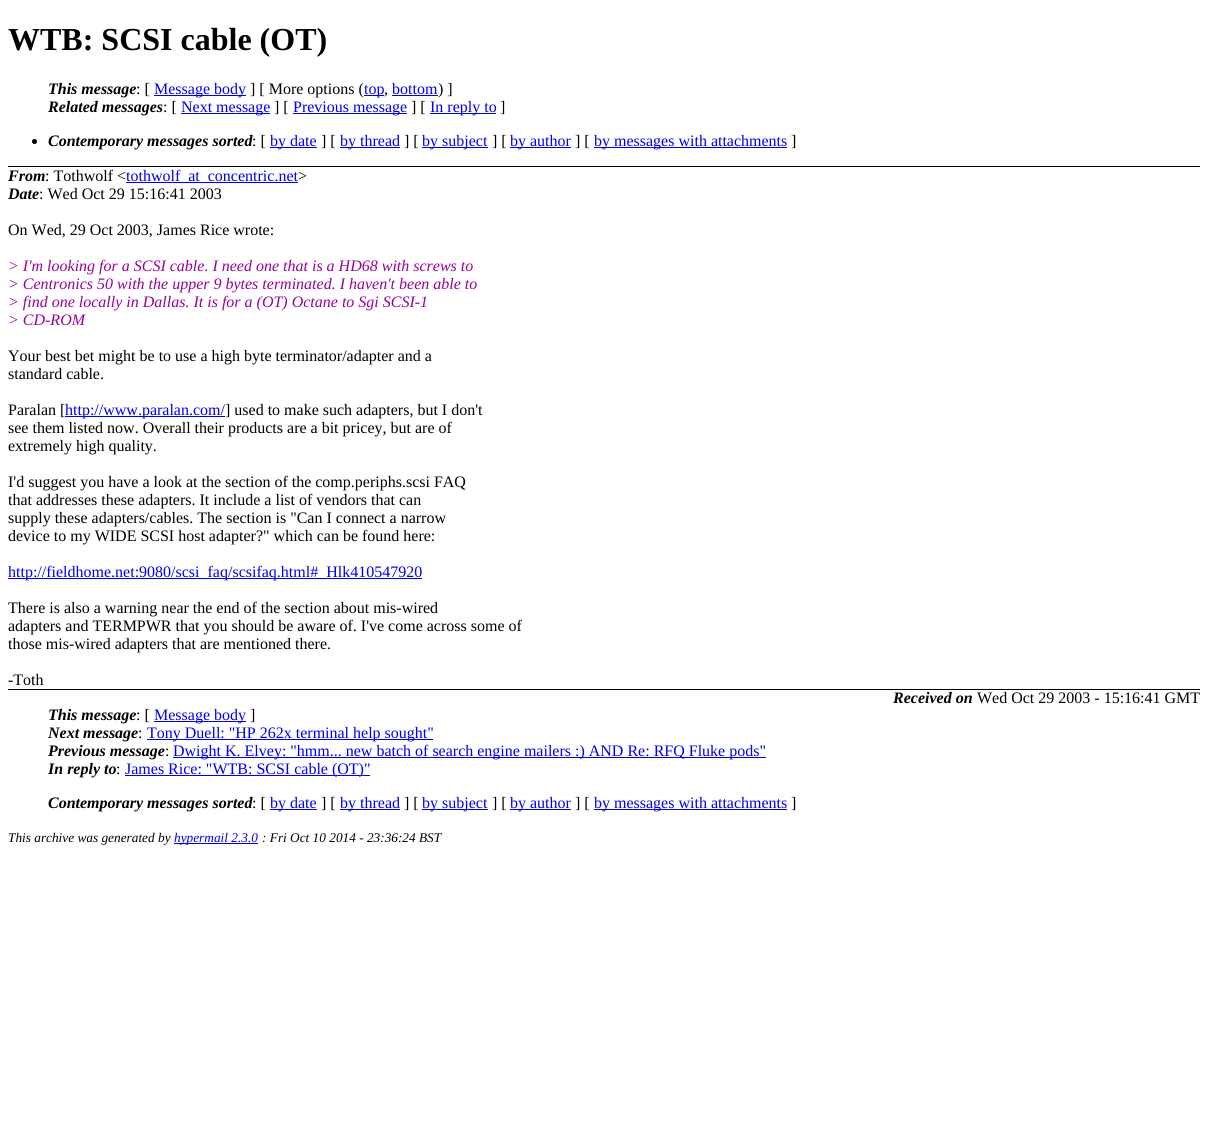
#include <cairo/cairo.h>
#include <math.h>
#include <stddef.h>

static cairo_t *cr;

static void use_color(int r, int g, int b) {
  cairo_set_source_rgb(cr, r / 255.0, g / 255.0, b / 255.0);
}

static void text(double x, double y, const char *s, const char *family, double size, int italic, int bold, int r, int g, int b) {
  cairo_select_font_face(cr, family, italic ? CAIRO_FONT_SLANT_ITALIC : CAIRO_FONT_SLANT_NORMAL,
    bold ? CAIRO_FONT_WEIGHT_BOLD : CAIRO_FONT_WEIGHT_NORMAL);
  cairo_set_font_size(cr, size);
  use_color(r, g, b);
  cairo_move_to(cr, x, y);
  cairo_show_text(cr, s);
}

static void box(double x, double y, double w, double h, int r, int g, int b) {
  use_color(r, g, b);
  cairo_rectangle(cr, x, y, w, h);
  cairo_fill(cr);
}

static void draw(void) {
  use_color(255, 255, 255);
  cairo_paint(cr);
  box(8, 166, 1192, 1, 0, 0, 0);
  box(154, 95, 92, 1, 0, 0, 238);
  box(364, 95, 20, 1, 0, 0, 238);
  box(392, 95, 46, 1, 0, 0, 238);
  box(181, 113, 89, 1, 0, 0, 238);
  box(293, 113, 114, 1, 0, 0, 238);
  box(430, 113, 66, 1, 0, 0, 238);
  use_color(0, 0, 0);
  cairo_arc(cr, 34.5, 141.5, 2.5, 0, 2 * M_PI);
  cairo_fill(cr);
  box(270, 147, 47, 1, 0, 0, 238);
  box(340, 147, 60, 1, 0, 0, 238);
  box(422, 147, 66, 1, 0, 0, 238);
  box(510, 147, 61, 1, 0, 0, 238);
  box(594, 147, 193, 1, 0, 0, 238);
  box(126, 182, 172, 1, 0, 0, 238);
  box(65, 416, 160, 1, 0, 0, 238);
  box(8, 578, 414, 1, 0, 0, 238);
  box(8, 689, 1192, 1, 0, 0, 0);
  box(154, 721, 92, 1, 0, 0, 238);
  box(147, 739, 286, 1, 0, 0, 238);
  box(173, 757, 593, 1, 0, 0, 238);
  box(125, 775, 245, 1, 0, 0, 238);
  box(270, 809, 47, 1, 0, 0, 238);
  box(340, 809, 60, 1, 0, 0, 238);
  box(422, 809, 66, 1, 0, 0, 238);
  box(510, 809, 61, 1, 0, 0, 238);
  box(594, 809, 193, 1, 0, 0, 238);
  box(174, 843, 84, 1, 0, 0, 238);
  text(8, 50, "WTB: SCSI cable (OT)", "Liberation Serif", 32, 0, 1, 0, 0, 0);
  text(48, 94, "This message", "Liberation Serif", 16, 1, 1, 0, 0, 0);
  text(136, 94, ": [", "Liberation Serif", 16, 0, 0, 0, 0, 0);
  text(154, 94, "Message body", "Liberation Serif", 16, 0, 0, 0, 0, 238);
  text(250, 94, "] [ More options (", "Liberation Serif", 16, 0, 0, 0, 0, 0);
  text(364, 94, "top", "Liberation Serif", 16, 0, 0, 0, 0, 238);
  text(384, 94, ",", "Liberation Serif", 16, 0, 0, 0, 0, 0);
  text(392, 94, "bottom", "Liberation Serif", 16, 0, 0, 0, 0, 238);
  text(438, 94, ") ]", "Liberation Serif", 16, 0, 0, 0, 0, 0);
  text(48, 112, "Related messages", "Liberation Serif", 16, 1, 1, 0, 0, 0);
  text(163, 112, ": [", "Liberation Serif", 16, 0, 0, 0, 0, 0);
  text(181, 112, "Next message", "Liberation Serif", 16, 0, 0, 0, 0, 238);
  text(274, 112, "] [", "Liberation Serif", 16, 0, 0, 0, 0, 0);
  text(293, 112, "Previous message", "Liberation Serif", 16, 0, 0, 0, 0, 238);
  text(411, 112, "] [", "Liberation Serif", 16, 0, 0, 0, 0, 0);
  text(430, 112, "In reply to", "Liberation Serif", 16, 0, 0, 0, 0, 238);
  text(500, 112, "]", "Liberation Serif", 16, 0, 0, 0, 0, 0);
  text(48, 146, "Contemporary messages sorted", "Liberation Serif", 16, 1, 1, 0, 0, 0);
  text(252, 146, ": [", "Liberation Serif", 16, 0, 0, 0, 0, 0);
  text(270, 146, "by date", "Liberation Serif", 16, 0, 0, 0, 0, 238);
  text(321, 146, "] [", "Liberation Serif", 16, 0, 0, 0, 0, 0);
  text(340, 146, "by thread", "Liberation Serif", 16, 0, 0, 0, 0, 238);
  text(404, 146, "] [", "Liberation Serif", 16, 0, 0, 0, 0, 0);
  text(422, 146, "by subject", "Liberation Serif", 16, 0, 0, 0, 0, 238);
  text(492, 146, "] [", "Liberation Serif", 16, 0, 0, 0, 0, 0);
  text(510, 146, "by author", "Liberation Serif", 16, 0, 0, 0, 0, 238);
  text(575, 146, "] [", "Liberation Serif", 16, 0, 0, 0, 0, 0);
  text(594, 146, "by messages with attachments", "Liberation Serif", 16, 0, 0, 0, 0, 238);
  text(791, 146, "]", "Liberation Serif", 16, 0, 0, 0, 0, 0);
  text(8, 181, "From", "Liberation Serif", 16, 1, 1, 0, 0, 0);
  text(45, 181, ": Tothwolf <", "Liberation Serif", 16, 0, 0, 0, 0, 0);
  text(126, 181, "tothwolf_at_concentric.net", "Liberation Serif", 16, 0, 0, 0, 0, 238);
  text(298, 181, ">", "Liberation Serif", 16, 0, 0, 0, 0, 0);
  text(8, 199, "Date", "Liberation Serif", 16, 1, 1, 0, 0, 0);
  text(39, 199, ": Wed Oct 29 15:16:41 2003", "Liberation Serif", 16, 0, 0, 0, 0, 0);
  text(8, 235, "On Wed, 29 Oct 2003, James Rice wrote:", "Liberation Serif", 16, 0, 0, 0, 0, 0);
  text(8, 271, "> I'm looking for a SCSI cable. I need one that is a HD68 with screws to", "Liberation Serif", 16, 1, 0, 153, 0, 153);
  text(8, 289, "> Centronics 50 with the upper 9 bytes terminated. I haven't been able to", "Liberation Serif", 16, 1, 0, 153, 0, 153);
  text(8, 307, "> find one locally in Dallas. It is for a (OT) Octane to Sgi SCSI-1", "Liberation Serif", 16, 1, 0, 153, 0, 153);
  text(8, 325, "> CD-ROM", "Liberation Serif", 16, 1, 0, 153, 0, 153);
  text(8, 361, "Your best bet might be to use a high byte terminator/adapter and a", "Liberation Serif", 16, 0, 0, 0, 0, 0);
  text(8, 379, "standard cable.", "Liberation Serif", 16, 0, 0, 0, 0, 0);
  text(8, 415, "Paralan [", "Liberation Serif", 16, 0, 0, 0, 0, 0);
  text(65, 415, "http://www.paralan.com/", "Liberation Serif", 16, 0, 0, 0, 0, 238);
  text(225, 415, "] used to make such adapters, but I don't", "Liberation Serif", 16, 0, 0, 0, 0, 0);
  text(8, 433, "see them listed now. Overall their products are a bit pricey, but are of", "Liberation Serif", 16, 0, 0, 0, 0, 0);
  text(8, 451, "extremely high quality.", "Liberation Serif", 16, 0, 0, 0, 0, 0);
  text(8, 487, "I'd suggest you have a look at the section of the comp.periphs.scsi FAQ", "Liberation Serif", 16, 0, 0, 0, 0, 0);
  text(8, 505, "that addresses these adapters. It include a list of vendors that can", "Liberation Serif", 16, 0, 0, 0, 0, 0);
  text(8, 523, "supply these adapters/cables. The section is \"Can I connect a narrow", "Liberation Serif", 16, 0, 0, 0, 0, 0);
  text(8, 541, "device to my WIDE SCSI host adapter?\" which can be found here:", "Liberation Serif", 16, 0, 0, 0, 0, 0);
  text(8, 577, "http://fieldhome.net:9080/scsi_faq/scsifaq.html#_Hlk410547920", "Liberation Serif", 16, 0, 0, 0, 0, 238);
  text(8, 613, "There is also a warning near the end of the section about mis-wired", "Liberation Serif", 16, 0, 0, 0, 0, 0);
  text(8, 631, "adapters and TERMPWR that you should be aware of. I've come across some of", "Liberation Serif", 16, 0, 0, 0, 0, 0);
  text(8, 649, "those mis-wired adapters that are mentioned there.", "Liberation Serif", 16, 0, 0, 0, 0, 0);
  text(8, 685, "-Toth", "Liberation Serif", 16, 0, 0, 0, 0, 0);
  text(893, 703, "Received on", "Liberation Serif", 16, 1, 1, 0, 0, 0);
  text(977, 703, "Wed Oct 29 2003 - 15:16:41 GMT", "Liberation Serif", 16, 0, 0, 0, 0, 0);
  text(48, 720, "This message", "Liberation Serif", 16, 1, 1, 0, 0, 0);
  text(136, 720, ": [", "Liberation Serif", 16, 0, 0, 0, 0, 0);
  text(154, 720, "Message body", "Liberation Serif", 16, 0, 0, 0, 0, 238);
  text(250, 720, "]", "Liberation Serif", 16, 0, 0, 0, 0, 0);
  text(48, 738, "Next message", "Liberation Serif", 16, 1, 1, 0, 0, 0);
  text(138, 738, ":", "Liberation Serif", 16, 0, 0, 0, 0, 0);
  text(147, 738, "Tony Duell: \"HP 262x terminal help sought\"", "Liberation Serif", 16, 0, 0, 0, 0, 238);
  text(48, 756, "Previous message", "Liberation Serif", 16, 1, 1, 0, 0, 0);
  text(165, 756, ":", "Liberation Serif", 16, 0, 0, 0, 0, 0);
  text(173, 756, "Dwight K. Elvey: \"hmm... new batch of search engine mailers :) AND Re: RFQ Fluke pods\"", "Liberation Serif", 16, 0, 0, 0, 0, 238);
  text(48, 774, "In reply to", "Liberation Serif", 16, 1, 1, 0, 0, 0);
  text(116, 774, ":", "Liberation Serif", 16, 0, 0, 0, 0, 0);
  text(125, 774, "James Rice: \"WTB: SCSI cable (OT)\"", "Liberation Serif", 16, 0, 0, 0, 0, 238);
  text(48, 808, "Contemporary messages sorted", "Liberation Serif", 16, 1, 1, 0, 0, 0);
  text(252, 808, ": [", "Liberation Serif", 16, 0, 0, 0, 0, 0);
  text(270, 808, "by date", "Liberation Serif", 16, 0, 0, 0, 0, 238);
  text(321, 808, "] [", "Liberation Serif", 16, 0, 0, 0, 0, 0);
  text(340, 808, "by thread", "Liberation Serif", 16, 0, 0, 0, 0, 238);
  text(404, 808, "] [", "Liberation Serif", 16, 0, 0, 0, 0, 0);
  text(422, 808, "by subject", "Liberation Serif", 16, 0, 0, 0, 0, 238);
  text(492, 808, "] [", "Liberation Serif", 16, 0, 0, 0, 0, 0);
  text(510, 808, "by author", "Liberation Serif", 16, 0, 0, 0, 0, 238);
  text(575, 808, "] [", "Liberation Serif", 16, 0, 0, 0, 0, 0);
  text(594, 808, "by messages with attachments", "Liberation Serif", 16, 0, 0, 0, 0, 238);
  text(791, 808, "]", "Liberation Serif", 16, 0, 0, 0, 0, 0);
  text(8, 842, "This archive was generated by", "Liberation Serif", 13.3, 1, 0, 0, 0, 0);
  text(174, 842, "hypermail 2.3.0", "Liberation Serif", 13.3, 1, 0, 0, 0, 238);
  text(262, 842, ": Fri Oct 10 2014 - 23:36:24 BST", "Liberation Serif", 13.3, 1, 0, 0, 0, 0);
}

int main(void) {
  cairo_surface_t *surface = cairo_image_surface_create(CAIRO_FORMAT_RGB24, 1208, 1127);
  cr = cairo_create(surface);
  cairo_font_options_t *options = cairo_font_options_create();
  cairo_font_options_set_hint_metrics(options, CAIRO_HINT_METRICS_OFF);
  cairo_font_options_set_hint_style(options, CAIRO_HINT_STYLE_NONE);
  cairo_set_font_options(cr, options);
  cairo_set_miter_limit(cr, 4);
  draw();
  cairo_surface_write_to_png(surface, "out.png");
  cairo_font_options_destroy(options);
  cairo_destroy(cr);
  cairo_surface_destroy(surface);
  return 0;
}
